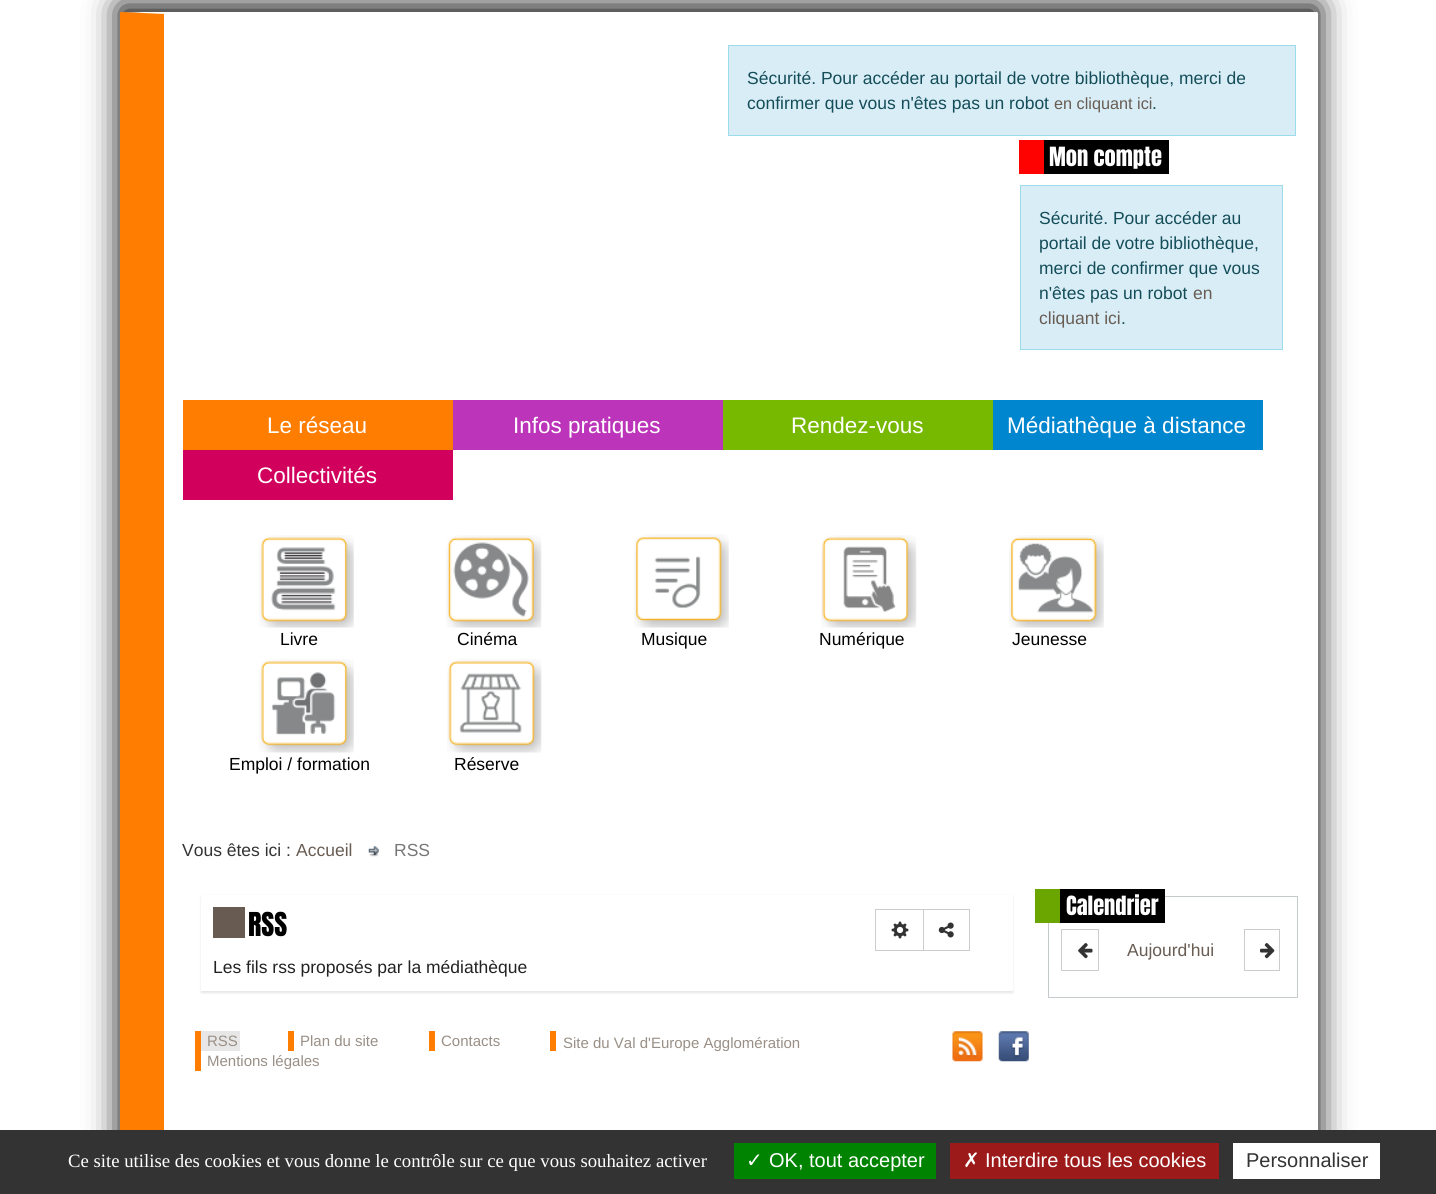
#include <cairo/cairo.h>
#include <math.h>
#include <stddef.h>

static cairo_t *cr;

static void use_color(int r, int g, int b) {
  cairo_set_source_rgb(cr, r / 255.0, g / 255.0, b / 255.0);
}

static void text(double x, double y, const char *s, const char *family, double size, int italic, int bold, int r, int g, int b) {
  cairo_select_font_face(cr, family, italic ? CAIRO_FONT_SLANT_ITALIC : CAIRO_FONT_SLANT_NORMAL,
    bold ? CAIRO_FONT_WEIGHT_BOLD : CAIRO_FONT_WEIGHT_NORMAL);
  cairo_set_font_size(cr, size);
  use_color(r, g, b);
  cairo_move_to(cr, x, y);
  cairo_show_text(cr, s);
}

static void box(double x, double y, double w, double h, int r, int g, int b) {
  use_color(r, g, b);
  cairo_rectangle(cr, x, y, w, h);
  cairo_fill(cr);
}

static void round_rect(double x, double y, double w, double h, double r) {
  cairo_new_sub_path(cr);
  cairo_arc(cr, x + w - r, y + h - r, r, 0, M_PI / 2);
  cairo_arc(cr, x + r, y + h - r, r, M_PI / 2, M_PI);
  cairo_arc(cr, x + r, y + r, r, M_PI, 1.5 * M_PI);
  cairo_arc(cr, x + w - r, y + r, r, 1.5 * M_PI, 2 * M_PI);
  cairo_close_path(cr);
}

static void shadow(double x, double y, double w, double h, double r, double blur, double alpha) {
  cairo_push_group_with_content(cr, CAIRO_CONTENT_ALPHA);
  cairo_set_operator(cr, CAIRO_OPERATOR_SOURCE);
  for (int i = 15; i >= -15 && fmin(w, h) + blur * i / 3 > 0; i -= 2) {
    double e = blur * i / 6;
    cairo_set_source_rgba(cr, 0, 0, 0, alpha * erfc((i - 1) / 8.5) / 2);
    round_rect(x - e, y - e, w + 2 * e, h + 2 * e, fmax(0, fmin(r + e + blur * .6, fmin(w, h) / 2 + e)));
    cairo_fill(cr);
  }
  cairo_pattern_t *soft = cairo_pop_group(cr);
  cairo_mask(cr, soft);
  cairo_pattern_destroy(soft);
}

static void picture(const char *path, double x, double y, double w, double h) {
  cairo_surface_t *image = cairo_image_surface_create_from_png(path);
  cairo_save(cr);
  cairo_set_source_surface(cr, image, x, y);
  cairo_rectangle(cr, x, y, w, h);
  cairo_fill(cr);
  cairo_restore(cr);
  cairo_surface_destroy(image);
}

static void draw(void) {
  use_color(255, 255, 255);
  cairo_paint(cr);
  cairo_save(cr);
  cairo_set_fill_rule(cr, CAIRO_FILL_RULE_EVEN_ODD);
  cairo_new_path(cr);
  cairo_move_to(cr, 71, 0);
  cairo_line_to(cr, 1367, 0);
  cairo_line_to(cr, 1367, 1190);
  cairo_line_to(cr, 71, 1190);
  cairo_close_path(cr);
  cairo_move_to(cr, 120, 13);
  cairo_line_to(cr, 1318, 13);
  cairo_line_to(cr, 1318, 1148);
  cairo_line_to(cr, 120, 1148);
  cairo_close_path(cr);
  cairo_clip(cr);
  use_color(0, 0, 0);
  shadow(120, 6, 1198, 1135, 0, 16, 1);
  cairo_restore(cr);
  use_color(255, 255, 255);
  cairo_new_path(cr);
  cairo_move_to(cr, 120, 12);
  cairo_line_to(cr, 1318, 12);
  cairo_line_to(cr, 1316, 14);
  cairo_line_to(cr, 164, 14);
  cairo_close_path(cr);
  cairo_fill(cr);
  use_color(255, 125, 0);
  cairo_new_path(cr);
  cairo_move_to(cr, 120, 1148);
  cairo_line_to(cr, 120, 12);
  cairo_line_to(cr, 164, 14);
  cairo_line_to(cr, 164, 1146);
  cairo_close_path(cr);
  cairo_fill(cr);
  use_color(217, 237, 247);
  cairo_rectangle(cr, 728.5, 45.5, 567, 90);
  cairo_fill_preserve(cr);
  use_color(154, 220, 234);
  cairo_set_line_width(cr, 1);
  cairo_stroke(cr);
  box(1044, 140, 125, 34, 0, 0, 0);
  box(1019, 140, 25, 34, 254, 2, 2);
  use_color(217, 237, 247);
  cairo_rectangle(cr, 1020.5, 185.5, 262, 164);
  cairo_fill_preserve(cr);
  use_color(154, 220, 234);
  cairo_stroke(cr);
  box(183, 400, 270, 50, 255, 125, 0);
  box(453, 400, 270, 50, 188, 52, 186);
  box(723, 400, 270, 50, 119, 184, 0);
  box(993, 400, 270, 50, 0, 133, 207);
  box(183, 450, 270, 50, 209, 0, 93);
  picture("img_01.png", 259, 535, 95, 93);
  picture("img_02.png", 446, 535, 96, 93);
  picture("img_03.png", 634, 534, 95, 94);
  picture("img_04.png", 821, 535, 96, 93);
  picture("img_05.png", 1009, 535, 95, 93);
  picture("img_06.png", 259, 659, 95, 94);
  picture("img_07.png", 447, 659, 95, 94);
  picture("img_08.png", 368, 846, 11, 11);
  cairo_save(cr);
  cairo_set_fill_rule(cr, CAIRO_FILL_RULE_EVEN_ODD);
  cairo_new_path(cr);
  cairo_move_to(cr, 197, 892);
  cairo_line_to(cr, 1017, 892);
  cairo_line_to(cr, 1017, 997);
  cairo_line_to(cr, 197, 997);
  cairo_close_path(cr);
  cairo_move_to(cr, 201, 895);
  cairo_line_to(cr, 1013, 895);
  cairo_line_to(cr, 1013, 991);
  cairo_line_to(cr, 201, 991);
  cairo_close_path(cr);
  cairo_clip(cr);
  use_color(0, 0, 0);
  shadow(201, 896, 812, 97, 0, 1, 0.1);
  cairo_restore(cr);
  box(213, 907, 32, 31, 103, 91, 82);
  cairo_rectangle(cr, 875.5, 909.5, 49, 41);
  use_color(204, 204, 204);
  cairo_stroke(cr);
  picture("img_09.png", 891, 921, 18, 18);
  box(924, 910, 1, 40, 255, 255, 255);
  cairo_rectangle(cr, 923.5, 909.5, 46, 41);
  use_color(204, 204, 204);
  cairo_stroke(cr);
  picture("img_10.png", 938, 922, 16, 16);
  cairo_rectangle(cr, 1048.5, 896.5, 249, 101);
  use_color(197, 202, 204);
  cairo_stroke(cr);
  box(1060, 889, 105, 34, 0, 0, 0);
  box(1035, 889, 25, 34, 107, 165, 0);
  cairo_rectangle(cr, 1061.5, 929.5, 37, 41);
  use_color(204, 204, 204);
  cairo_stroke(cr);
  picture("img_11.png", 1078, 943, 15, 16);
  cairo_rectangle(cr, 1244.5, 929.5, 35, 41);
  cairo_stroke(cr);
  picture("img_12.png", 1260, 943, 15, 16);
  box(195, 1031, 6, 40, 255, 125, 0);
  box(201, 1031, 39, 20, 231, 231, 231);
  box(288, 1031, 6, 20, 255, 125, 0);
  box(429, 1031, 6, 20, 255, 125, 0);
  box(550, 1031, 6, 20, 255, 125, 0);
  picture("img_13.png", 952, 1031, 31, 31);
  picture("img_14.png", 998, 1031, 31, 31);
  box(0, 1130, 1436, 64, 51, 51, 51);
  box(734, 1143, 202, 36, 0, 131, 0);
  box(950, 1143, 269, 36, 156, 26, 26);
  box(1233, 1143, 147, 36, 255, 255, 255);
  text(747, 84, "Sécurité. Pour accéder au portail de votre bibliothèque, merci de", "Liberation Sans", 17.5, 0, 0, 19, 77, 88);
  text(747, 109, "confirmer que vous n'êtes pas un robot", "Liberation Sans", 17.5, 0, 0, 19, 77, 88);
  text(1054, 109, "en cliquant ici", "Liberation Sans", 16.25, 0, 0, 104, 92, 83);
  text(1152, 109, ".", "Liberation Sans", 17.5, 0, 0, 19, 77, 88);
  text(1049, 166, "Mon compte", "Anton", 22.5, 0, 0, 255, 255, 255);
  text(1039, 224, "Sécurité. Pour accéder au", "Liberation Sans", 17.5, 0, 0, 19, 77, 88);
  text(1039, 249, "portail de votre bibliothèque,", "Liberation Sans", 17.5, 0, 0, 19, 77, 88);
  text(1039, 274, "merci de confirmer que vous", "Liberation Sans", 17.5, 0, 0, 19, 77, 88);
  text(1039, 299, "n'êtes pas un robot", "Liberation Sans", 17.5, 0, 0, 19, 77, 88);
  text(1193, 299, "en", "Liberation Sans", 17.5, 0, 0, 104, 92, 83);
  text(1039, 324, "cliquant ici", "Liberation Sans", 17.5, 0, 0, 104, 92, 83);
  text(1121, 324, ".", "Liberation Sans", 17.5, 0, 0, 19, 77, 88);
  text(267, 433, "Le réseau", "Liberation Sans", 22.5, 0, 0, 255, 255, 255);
  text(513, 433, "Infos pratiques", "Liberation Sans", 22.5, 0, 0, 255, 255, 255);
  text(791, 433, "Rendez-vous", "Liberation Sans", 22.5, 0, 0, 255, 255, 255);
  text(1007, 433, "Médiathèque à distance", "Liberation Sans", 22.5, 0, 0, 255, 255, 255);
  text(257, 483, "Collectivités", "Liberation Sans", 22.5, 0, 0, 255, 255, 255);
  text(280, 645, "Livre", "Liberation Sans", 17.5, 0, 0, 0, 0, 0);
  text(457, 645, "Cinéma", "Liberation Sans", 17.5, 0, 0, 0, 0, 0);
  text(641, 645, "Musique", "Liberation Sans", 17.5, 0, 0, 0, 0, 0);
  text(819, 645, "Numérique", "Liberation Sans", 17.5, 0, 0, 0, 0, 0);
  text(1012, 645, "Jeunesse", "Liberation Sans", 17.5, 0, 0, 0, 0, 0);
  text(229, 770, "Emploi / formation", "Liberation Sans", 17.5, 0, 0, 0, 0, 0);
  text(454, 770, "Réserve", "Liberation Sans", 17.5, 0, 0, 0, 0, 0);
  text(182, 856, "Vous êtes ici :", "Liberation Sans", 17.5, 0, 0, 51, 51, 51);
  text(296, 856, "Accueil", "Liberation Sans", 17.5, 0, 0, 104, 92, 83);
  text(394, 856, "RSS", "Liberation Sans", 17.5, 0, 0, 119, 119, 119);
  text(248, 936, "RSS", "Anton", 28, 0, 0, 0, 0, 0);
  text(213, 973, "Les fils rss proposés par la médiathèque", "Liberation Sans", 17.5, 0, 0, 34, 34, 34);
  text(1066, 915, "Calendrier", "Anton", 22.5, 0, 0, 255, 255, 255);
  text(1127, 956, "Aujourd'hui", "Liberation Sans", 17.5, 0, 0, 104, 92, 83);
  text(207, 1046, "RSS", "Liberation Sans", 15, 0, 0, 153, 143, 134);
  text(300, 1046, "Plan du site", "Liberation Sans", 15, 0, 0, 153, 143, 134);
  text(441, 1046, "Contacts", "Liberation Sans", 15, 0, 0, 153, 143, 134);
  text(563, 1048, "Site du Val d'Europe Agglomération", "Liberation Sans", 15, 0, 0, 153, 143, 134);
  text(207, 1066, "Mentions légales", "Liberation Sans", 15, 0, 0, 153, 143, 134);
  text(68, 1167, "Ce site utilise des cookies et vous donne le contrôle sur ce que vous souhaitez activer", "Liberation Serif", 18.75, 0, 0, 255, 255, 255);
  text(746, 1167, "✓", "DejaVu Sans", 20, 0, 0, 255, 255, 255);
  text(769, 1167, "OK, tout accepter", "Liberation Sans", 20, 0, 0, 255, 255, 255);
  text(963, 1167, "✗", "DejaVu Sans", 20, 0, 0, 255, 255, 255);
  text(985, 1167, "Interdire tous les cookies", "Liberation Sans", 20, 0, 0, 255, 255, 255);
  text(1246, 1167, "Personnaliser", "Liberation Sans", 20, 0, 0, 51, 51, 51);
}

int main(void) {
  cairo_surface_t *surface = cairo_image_surface_create(CAIRO_FORMAT_RGB24, 1436, 1194);
  cr = cairo_create(surface);
  cairo_font_options_t *options = cairo_font_options_create();
  cairo_font_options_set_hint_metrics(options, CAIRO_HINT_METRICS_OFF);
  cairo_font_options_set_hint_style(options, CAIRO_HINT_STYLE_NONE);
  cairo_set_font_options(cr, options);
  cairo_set_miter_limit(cr, 4);
  draw();
  cairo_surface_write_to_png(surface, "out.png");
  cairo_font_options_destroy(options);
  cairo_destroy(cr);
  cairo_surface_destroy(surface);
  return 0;
}
